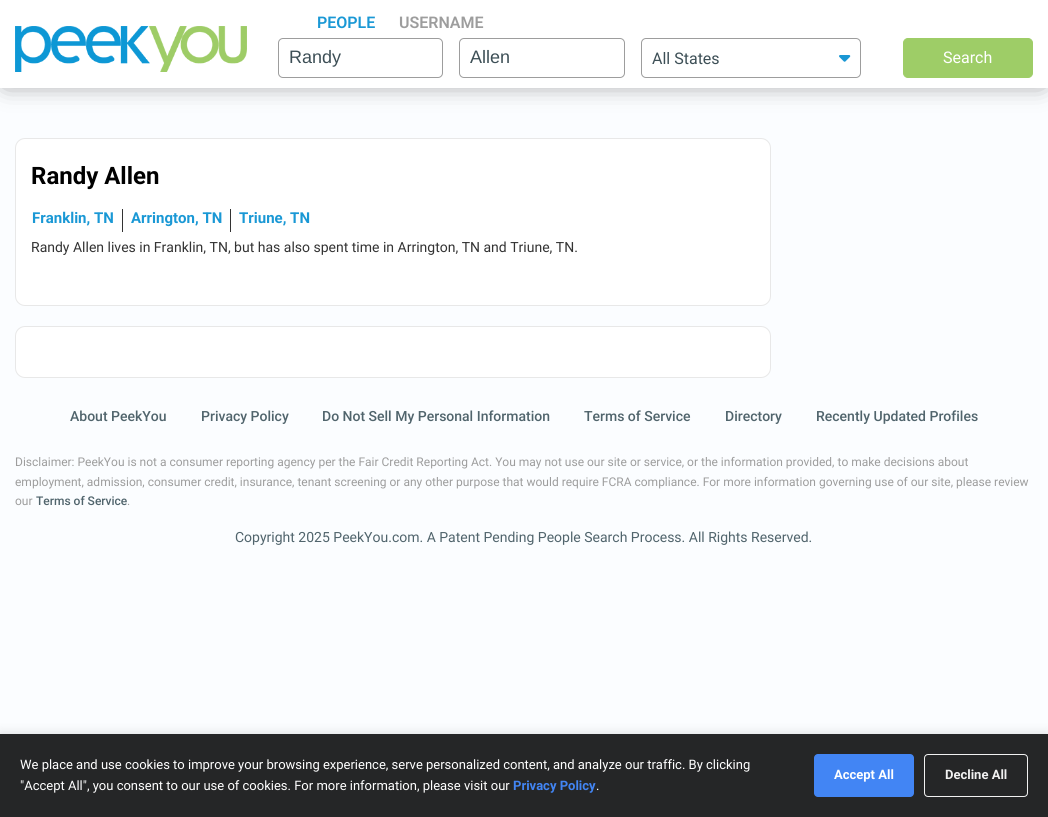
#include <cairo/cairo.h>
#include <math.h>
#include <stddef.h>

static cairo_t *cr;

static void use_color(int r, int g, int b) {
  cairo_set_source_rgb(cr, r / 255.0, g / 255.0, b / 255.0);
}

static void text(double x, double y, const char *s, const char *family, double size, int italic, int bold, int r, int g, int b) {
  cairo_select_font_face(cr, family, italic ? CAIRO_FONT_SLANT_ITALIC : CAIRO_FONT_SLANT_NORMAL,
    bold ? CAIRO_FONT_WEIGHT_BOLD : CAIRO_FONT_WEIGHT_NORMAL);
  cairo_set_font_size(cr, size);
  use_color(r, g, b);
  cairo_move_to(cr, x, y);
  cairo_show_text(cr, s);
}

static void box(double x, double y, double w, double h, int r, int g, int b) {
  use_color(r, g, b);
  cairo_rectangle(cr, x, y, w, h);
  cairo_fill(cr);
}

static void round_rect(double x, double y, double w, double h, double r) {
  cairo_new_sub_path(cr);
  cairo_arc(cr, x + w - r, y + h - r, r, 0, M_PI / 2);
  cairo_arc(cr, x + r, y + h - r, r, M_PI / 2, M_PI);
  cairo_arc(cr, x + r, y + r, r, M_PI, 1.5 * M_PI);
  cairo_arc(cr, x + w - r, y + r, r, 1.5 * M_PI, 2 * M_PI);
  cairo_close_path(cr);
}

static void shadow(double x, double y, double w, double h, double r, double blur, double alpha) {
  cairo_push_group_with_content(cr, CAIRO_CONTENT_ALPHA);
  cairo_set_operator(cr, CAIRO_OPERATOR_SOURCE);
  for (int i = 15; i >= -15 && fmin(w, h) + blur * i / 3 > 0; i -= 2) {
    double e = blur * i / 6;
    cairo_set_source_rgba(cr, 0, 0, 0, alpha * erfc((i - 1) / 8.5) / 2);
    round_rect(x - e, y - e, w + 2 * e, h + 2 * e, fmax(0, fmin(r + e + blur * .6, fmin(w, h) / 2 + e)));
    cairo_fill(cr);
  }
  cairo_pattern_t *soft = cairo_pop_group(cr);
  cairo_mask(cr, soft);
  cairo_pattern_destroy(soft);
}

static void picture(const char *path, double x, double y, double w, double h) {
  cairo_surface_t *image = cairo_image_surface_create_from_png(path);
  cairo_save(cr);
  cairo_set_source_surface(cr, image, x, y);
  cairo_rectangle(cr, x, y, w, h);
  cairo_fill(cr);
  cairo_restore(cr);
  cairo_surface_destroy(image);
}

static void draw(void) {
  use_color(251, 253, 255);
  cairo_paint(cr);
  use_color(0, 0, 0);
  shadow(6, 6, 1036, 76, 0, 12.5, 0.5);
  box(0, 0, 1048, 88, 255, 255, 255);
  picture("img_01.png", 15, 26, 232, 46);
  round_rect(278.5, 38.5, 164, 39, 4.5);
  use_color(157, 157, 157);
  cairo_set_line_width(cr, 1);
  cairo_stroke(cr);
  round_rect(459.5, 38.5, 165, 39, 4.5);
  cairo_stroke(cr);
  round_rect(641.5, 38.5, 219, 39, 4.5);
  cairo_stroke(cr);
  picture("img_02.png", 839, 55, 12, 7);
  use_color(158, 205, 103);
  round_rect(903.5, 38.5, 129, 39, 4.5);
  cairo_fill_preserve(cr);
  cairo_stroke(cr);
  use_color(255, 255, 255);
  round_rect(15.5, 138.5, 755, 167, 9.5);
  cairo_fill_preserve(cr);
  use_color(232, 232, 232);
  cairo_stroke(cr);
  box(122, 209, 1, 23, 51, 51, 51);
  box(230, 209, 1, 23, 51, 51, 51);
  use_color(255, 255, 255);
  round_rect(15.5, 326.5, 755, 51, 9.5);
  cairo_fill_preserve(cr);
  use_color(232, 232, 232);
  cairo_stroke(cr);
  use_color(0, 0, 0);
  shadow(0, 732, 1048, 83, 0, 5, 0.1);
  box(0, 734, 1048, 83, 37, 38, 39);
  use_color(66, 133, 244);
  round_rect(814, 754, 100, 43, 4);
  cairo_fill(cr);
  round_rect(924.5, 754.5, 103, 42, 3.5);
  use_color(241, 241, 241);
  cairo_stroke(cr);
  text(317, 28, "PEOPLE", "Roboto SemiBold", 16, 0, 0, 26, 152, 213);
  text(399, 28, "USERNAME", "Roboto SemiBold", 16, 0, 0, 157, 157, 157);
  text(289, 63, "Randy", "Liberation Sans", 18, 0, 0, 61, 79, 86);
  text(470, 63, "Allen", "Liberation Sans", 18, 0, 0, 61, 79, 86);
  text(652, 64, "All States", "Roboto", 16, 0, 0, 61, 79, 86);
  text(943, 63, "Search", "Roboto", 16, 0, 0, 255, 255, 255);
  text(31, 184, "Randy Allen", "Roboto", 24, 0, 1, 0, 0, 0);
  text(32, 223, "Franklin, TN", "Roboto", 15, 0, 1, 26, 152, 213);
  text(131, 223, "Arrington, TN", "Roboto", 15, 0, 1, 26, 152, 213);
  text(239, 223, "Triune, TN", "Roboto", 15, 0, 1, 26, 152, 213);
  text(31, 252, "Randy Allen lives in Franklin, TN, but has also spent time in Arrington, TN and Triune, TN.", "Roboto", 14, 0, 0, 51, 51, 51);
  text(70, 421, "About PeekYou", "Roboto Medium", 14, 0, 0, 80, 100, 108);
  text(201, 421, "Privacy Policy", "Roboto Medium", 14, 0, 0, 80, 100, 108);
  text(322, 421, "Do Not Sell My Personal Information", "Roboto Medium", 14, 0, 0, 80, 100, 108);
  text(584, 421, "Terms of Service", "Roboto Medium", 14, 0, 0, 80, 100, 108);
  text(725, 421, "Directory", "Roboto Medium", 14, 0, 0, 80, 100, 108);
  text(816, 421, "Recently Updated Profiles", "Roboto Medium", 14, 0, 0, 80, 100, 108);
  text(15, 466, "Disclaimer: PeekYou is not a consumer reporting agency per the Fair Credit Reporting Act. You may not use our site or service, or the information provided, to make decisions about", "Roboto", 12, 0, 0, 157, 157, 157);
  text(15, 486, "employment, admission, consumer credit, insurance, tenant screening or any other purpose that would require FCRA compliance. For more information governing use of our site, please review", "Roboto", 12, 0, 0, 157, 157, 157);
  text(15, 505, "our", "Roboto", 12, 0, 0, 157, 157, 157);
  text(36, 505, "Terms of Service", "Roboto Medium", 12, 0, 0, 80, 100, 108);
  text(127, 505, ".", "Roboto", 12, 0, 0, 157, 157, 157);
  text(235, 542, "Copyright 2025 PeekYou.com. A Patent Pending People Search Process. All Rights Reserved.", "Roboto", 14, 0, 0, 80, 100, 108);
  text(20, 769, "We place and use cookies to improve your browsing experience, serve personalized content, and analyze our traffic. By clicking", "Roboto", 13, 0, 0, 255, 255, 255);
  text(20, 790, "\"Accept All\", you consent to our use of cookies. For more information, please visit our", "Roboto", 13, 0, 0, 255, 255, 255);
  text(513, 790, "Privacy Policy", "Roboto", 13, 0, 1, 66, 133, 244);
  text(596, 790, ".", "Roboto", 13, 0, 0, 255, 255, 255);
  text(834, 779, "Accept All", "Roboto", 13, 0, 1, 255, 255, 255);
  text(945, 779, "Decline All", "Roboto", 13, 0, 1, 241, 241, 241);
}

int main(void) {
  cairo_surface_t *surface = cairo_image_surface_create(CAIRO_FORMAT_RGB24, 1048, 817);
  cr = cairo_create(surface);
  cairo_font_options_t *options = cairo_font_options_create();
  cairo_font_options_set_hint_metrics(options, CAIRO_HINT_METRICS_OFF);
  cairo_font_options_set_hint_style(options, CAIRO_HINT_STYLE_NONE);
  cairo_set_font_options(cr, options);
  cairo_set_miter_limit(cr, 4);
  draw();
  cairo_surface_write_to_png(surface, "out.png");
  cairo_font_options_destroy(options);
  cairo_destroy(cr);
  cairo_surface_destroy(surface);
  return 0;
}
